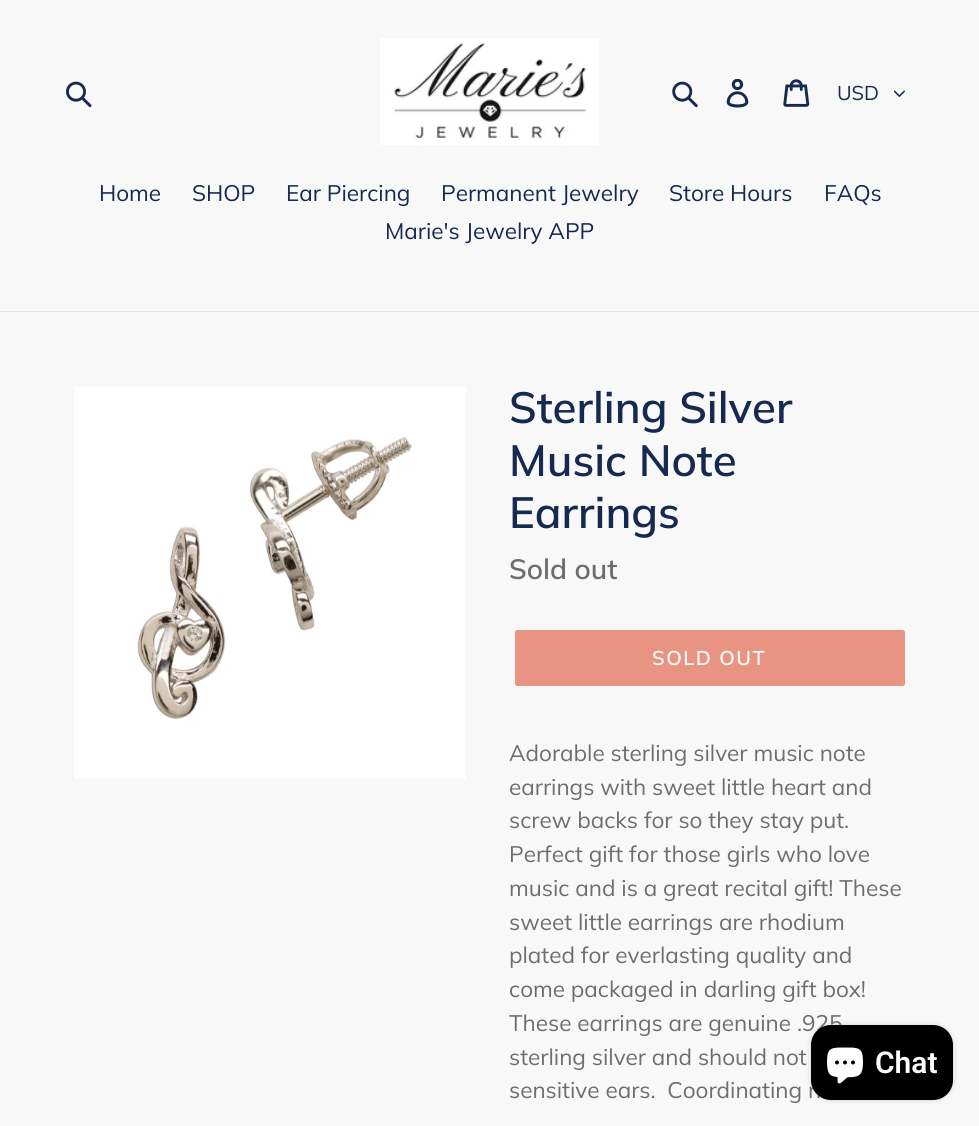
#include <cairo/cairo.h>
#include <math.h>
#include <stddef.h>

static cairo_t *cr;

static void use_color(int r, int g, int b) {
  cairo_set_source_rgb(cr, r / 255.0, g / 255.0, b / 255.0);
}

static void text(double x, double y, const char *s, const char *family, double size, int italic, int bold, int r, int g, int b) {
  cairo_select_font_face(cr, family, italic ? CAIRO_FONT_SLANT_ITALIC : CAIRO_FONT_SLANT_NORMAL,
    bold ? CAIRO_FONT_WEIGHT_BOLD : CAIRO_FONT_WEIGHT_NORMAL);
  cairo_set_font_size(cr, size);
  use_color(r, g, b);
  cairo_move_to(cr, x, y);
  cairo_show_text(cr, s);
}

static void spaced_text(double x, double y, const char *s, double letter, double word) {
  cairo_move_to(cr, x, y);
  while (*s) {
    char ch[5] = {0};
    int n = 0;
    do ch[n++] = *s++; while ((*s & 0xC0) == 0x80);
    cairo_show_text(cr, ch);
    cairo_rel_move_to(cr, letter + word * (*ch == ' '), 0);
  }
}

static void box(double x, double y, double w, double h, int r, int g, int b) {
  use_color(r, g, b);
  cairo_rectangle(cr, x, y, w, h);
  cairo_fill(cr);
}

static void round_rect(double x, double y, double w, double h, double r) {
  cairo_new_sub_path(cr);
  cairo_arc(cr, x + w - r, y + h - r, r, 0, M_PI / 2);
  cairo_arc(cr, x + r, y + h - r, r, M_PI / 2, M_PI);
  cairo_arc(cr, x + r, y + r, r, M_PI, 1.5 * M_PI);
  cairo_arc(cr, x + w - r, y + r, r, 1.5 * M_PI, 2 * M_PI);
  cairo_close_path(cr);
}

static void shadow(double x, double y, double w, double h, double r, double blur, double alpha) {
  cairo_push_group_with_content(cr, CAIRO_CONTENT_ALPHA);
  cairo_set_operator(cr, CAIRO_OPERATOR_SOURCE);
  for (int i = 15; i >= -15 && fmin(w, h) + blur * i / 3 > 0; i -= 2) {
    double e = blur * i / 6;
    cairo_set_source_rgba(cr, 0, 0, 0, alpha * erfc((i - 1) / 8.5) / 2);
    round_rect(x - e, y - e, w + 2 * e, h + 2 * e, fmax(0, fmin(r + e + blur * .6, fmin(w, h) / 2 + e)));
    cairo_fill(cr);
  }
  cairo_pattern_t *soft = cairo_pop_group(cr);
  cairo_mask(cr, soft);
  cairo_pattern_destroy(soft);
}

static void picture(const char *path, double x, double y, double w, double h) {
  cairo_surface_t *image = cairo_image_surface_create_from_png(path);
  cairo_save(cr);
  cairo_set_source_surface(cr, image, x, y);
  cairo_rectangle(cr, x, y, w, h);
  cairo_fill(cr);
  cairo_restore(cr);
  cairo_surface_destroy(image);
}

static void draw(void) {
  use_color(248, 248, 248);
  cairo_paint(cr);
  picture("img_01.png", 66, 81, 26, 27);
  picture("img_02.png", 380, 38, 219, 107);
  picture("img_03.png", 672, 81, 26, 27);
  picture("img_04.png", 726, 79, 23, 29);
  picture("img_05.png", 783, 79, 27, 28);
  picture("img_06.png", 894, 90, 11, 7);
  box(0, 311, 979, 1, 228, 228, 228);
  picture("img_07.png", 74, 386, 392, 393);
  use_color(233, 148, 130);
  round_rect(515, 630, 390, 56, 2.5);
  cairo_fill(cr);
  use_color(0, 0, 0);
  shadow(811, 1025, 142, 75, 20, 3, 0.15);
  text(837, 100, "USD", "Muli", 20, 0, 0, 22, 41, 80);
  text(99, 201, "Home", "Muli", 22.5, 0, 0, 22, 41, 80);
  text(192, 201, "SHOP", "Muli", 22.5, 0, 0, 22, 41, 80);
  text(286, 201, "Ear Piercing", "Muli", 22.5, 0, 0, 22, 41, 80);
  text(441, 201, "Permanent Jewelry", "Muli", 22.5, 0, 0, 22, 41, 80);
  text(669, 201, "Store Hours", "Muli", 22.5, 0, 0, 22, 41, 80);
  text(824, 201, "FAQs", "Muli", 22.5, 0, 0, 22, 41, 80);
  text(385, 239, "Marie's Jewelry APP", "Muli", 22.5, 0, 0, 22, 41, 80);
  text(509, 423, "Sterling Silver", "Muli SemiBold", 43.75, 0, 0, 22, 41, 80);
  text(509, 476, "Music Note", "Muli SemiBold", 43.75, 0, 0, 22, 41, 80);
  text(509, 528, "Earrings", "Muli SemiBold", 43.75, 0, 0, 22, 41, 80);
  text(509, 579, "Sold out", "Muli SemiBold", 28, 0, 0, 109, 109, 109);
  cairo_set_font_size(cr, 20);
  use_color(252, 252, 252);
  spaced_text(652, 665, "SOLD OUT", 1.5, 0);
  text(509, 761, "Adorable sterling silver music note", "Muli", 22.5, 0, 0, 109, 109, 109);
  text(509, 795, "earrings with sweet little heart and", "Muli", 22.5, 0, 0, 109, 109, 109);
  text(509, 828, "screw backs for so they stay put.", "Muli", 22.5, 0, 0, 109, 109, 109);
  text(509, 862, "Perfect gift for those girls who love", "Muli", 22.5, 0, 0, 109, 109, 109);
  text(509, 896, "music and is a great recital gift! These", "Muli", 22.5, 0, 0, 109, 109, 109);
  text(509, 930, "sweet little earrings are rhodium", "Muli", 22.5, 0, 0, 109, 109, 109);
  text(509, 963, "plated for everlasting quality and", "Muli", 22.5, 0, 0, 109, 109, 109);
  text(509, 997, "come packaged in darling gift box!", "Muli", 22.5, 0, 0, 109, 109, 109);
  text(509, 1031, "These earrings are genuine .925", "Muli", 22.5, 0, 0, 109, 109, 109);
  text(509, 1065, "sterling silver and should not", "Muli", 22.5, 0, 0, 109, 109, 109);
  text(509, 1098, "sensitive ears.  Coordinating n", "Muli", 22.5, 0, 0, 109, 109, 109);
  use_color(0, 0, 0);
  round_rect(811, 1025, 142, 75, 20);
  cairo_fill(cr);
  picture("img_08.png", 827, 1047, 36, 37);
  text(875, 1073, "Chat", "Roboto SemiBold", 30, 0, 0, 252, 252, 252);
}

int main(void) {
  cairo_surface_t *surface = cairo_image_surface_create(CAIRO_FORMAT_RGB24, 979, 1126);
  cr = cairo_create(surface);
  cairo_font_options_t *options = cairo_font_options_create();
  cairo_font_options_set_hint_metrics(options, CAIRO_HINT_METRICS_OFF);
  cairo_font_options_set_hint_style(options, CAIRO_HINT_STYLE_NONE);
  cairo_set_font_options(cr, options);
  cairo_set_miter_limit(cr, 4);
  draw();
  cairo_surface_write_to_png(surface, "out.png");
  cairo_font_options_destroy(options);
  cairo_destroy(cr);
  cairo_surface_destroy(surface);
  return 0;
}
